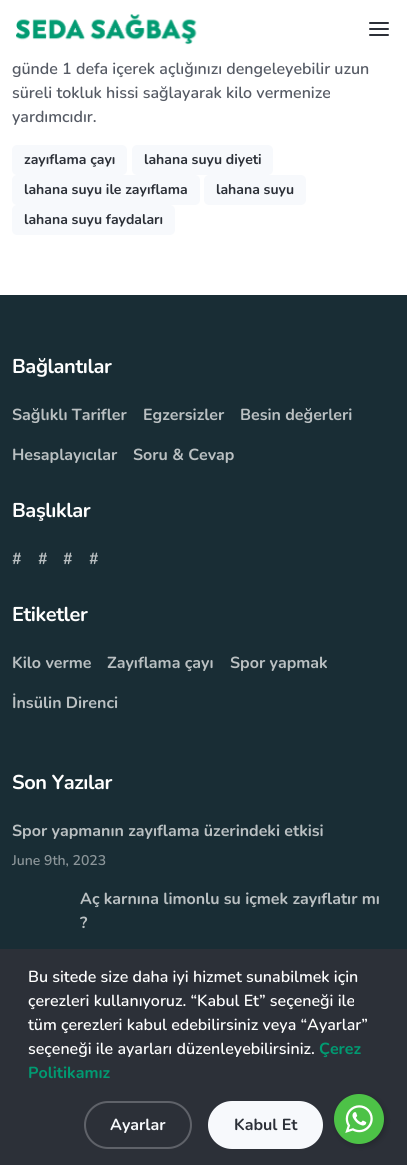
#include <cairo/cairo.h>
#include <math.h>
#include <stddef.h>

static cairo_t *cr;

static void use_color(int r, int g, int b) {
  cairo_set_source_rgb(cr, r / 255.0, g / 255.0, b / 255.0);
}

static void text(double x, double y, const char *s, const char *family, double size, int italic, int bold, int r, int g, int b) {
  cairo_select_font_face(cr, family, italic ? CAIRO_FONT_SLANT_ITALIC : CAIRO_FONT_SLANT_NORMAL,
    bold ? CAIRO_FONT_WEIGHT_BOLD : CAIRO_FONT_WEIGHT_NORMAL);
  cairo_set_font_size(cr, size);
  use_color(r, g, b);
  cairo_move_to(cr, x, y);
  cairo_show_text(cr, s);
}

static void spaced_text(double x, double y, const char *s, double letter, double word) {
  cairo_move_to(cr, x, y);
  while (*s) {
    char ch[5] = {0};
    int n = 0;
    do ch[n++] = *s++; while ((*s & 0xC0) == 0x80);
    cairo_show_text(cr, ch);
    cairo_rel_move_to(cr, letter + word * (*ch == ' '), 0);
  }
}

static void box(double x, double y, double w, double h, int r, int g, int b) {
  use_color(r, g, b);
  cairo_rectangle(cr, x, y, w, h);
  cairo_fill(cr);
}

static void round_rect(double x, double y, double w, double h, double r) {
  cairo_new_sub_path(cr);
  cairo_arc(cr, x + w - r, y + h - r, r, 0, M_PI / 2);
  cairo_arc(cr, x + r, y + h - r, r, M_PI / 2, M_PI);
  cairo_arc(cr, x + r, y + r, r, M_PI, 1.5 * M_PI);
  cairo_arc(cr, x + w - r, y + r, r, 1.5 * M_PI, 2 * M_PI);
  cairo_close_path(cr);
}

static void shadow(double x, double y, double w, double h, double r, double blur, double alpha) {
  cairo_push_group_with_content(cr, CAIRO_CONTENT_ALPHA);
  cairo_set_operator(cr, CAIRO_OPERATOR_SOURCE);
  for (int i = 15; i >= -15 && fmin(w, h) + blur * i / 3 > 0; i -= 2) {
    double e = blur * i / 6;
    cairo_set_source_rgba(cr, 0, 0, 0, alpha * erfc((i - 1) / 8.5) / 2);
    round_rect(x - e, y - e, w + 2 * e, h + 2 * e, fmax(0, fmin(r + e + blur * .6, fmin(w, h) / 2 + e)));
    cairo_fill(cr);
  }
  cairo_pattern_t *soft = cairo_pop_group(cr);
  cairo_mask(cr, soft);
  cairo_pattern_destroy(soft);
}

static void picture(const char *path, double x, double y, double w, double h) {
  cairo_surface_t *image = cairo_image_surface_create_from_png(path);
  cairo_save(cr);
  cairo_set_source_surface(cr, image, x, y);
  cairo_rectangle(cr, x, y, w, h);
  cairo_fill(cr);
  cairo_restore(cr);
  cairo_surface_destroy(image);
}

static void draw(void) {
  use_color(255, 255, 255);
  cairo_paint(cr);
  picture("img_01.png", 16, 14, 181, 31);
  cairo_new_path(cr);
  cairo_move_to(cr, 370, 29);
  cairo_line_to(cr, 388, 29);
  cairo_move_to(cr, 370, 23);
  cairo_line_to(cr, 388, 23);
  cairo_move_to(cr, 370, 35);
  cairo_line_to(cr, 388, 35);
  use_color(44, 48, 56);
  cairo_set_line_cap(cr, CAIRO_LINE_CAP_ROUND);
  cairo_set_line_join(cr, CAIRO_LINE_JOIN_ROUND);
  cairo_stroke(cr);
  use_color(247, 249, 252);
  round_rect(12, 145, 115, 30, 5);
  cairo_fill(cr);
  round_rect(132, 145, 141, 30, 5);
  cairo_fill(cr);
  round_rect(12, 175, 188, 30, 5);
  cairo_fill(cr);
  round_rect(204, 175, 102, 30, 5);
  cairo_fill(cr);
  round_rect(12, 205, 163, 30, 5);
  cairo_fill(cr);
  box(0, 295, 407, 654, 25, 45, 53);
  box(0, 949, 407, 216, 44, 48, 56);
  round_rect(85, 1102, 106, 46, 23);
  use_color(95, 98, 105);
  cairo_set_line_cap(cr, CAIRO_LINE_CAP_BUTT);
  cairo_set_line_join(cr, CAIRO_LINE_JOIN_MITER);
  cairo_stroke(cr);
  use_color(247, 249, 252);
  round_rect(209, 1102, 113, 46, 23);
  cairo_fill_preserve(cr);
  cairo_stroke(cr);
  use_color(0, 0, 0);
  shadow(336, 1096, 50, 50, 25, 3, 0.2);
  use_color(77, 194, 71);
  cairo_arc(cr, 359, 1119, 25, 0, 2 * M_PI);
  cairo_fill(cr);
  picture("img_02.png", 345, 1105, 28, 28);
  text(12, 74, "günde 1 defa içerek açlığınızı dengeleyebilir uzun", "Nunito SemiBold", 16, 0, 0, 85, 90, 100);
  text(12, 98, "süreli tokluk hissi sağlayarak kilo vermenize", "Nunito SemiBold", 16, 0, 0, 85, 90, 100);
  text(12, 122, "yardımcıdır.", "Nunito SemiBold", 16, 0, 0, 85, 90, 100);
  text(24, 164, "zayıflama çayı", "Nunito", 14, 0, 1, 44, 48, 56);
  text(144, 164, "lahana suyu diyeti", "Nunito", 14, 0, 1, 44, 48, 56);
  text(24, 194, "lahana suyu ile zayıflama", "Nunito", 14, 0, 1, 44, 48, 56);
  text(216, 194, "lahana suyu", "Nunito", 14, 0, 1, 44, 48, 56);
  text(24, 224, "lahana suyu faydaları", "Nunito", 14, 0, 1, 44, 48, 56);
  cairo_set_font_size(cr, 20);
  use_color(255, 255, 255);
  spaced_text(12, 373, "Bağlantılar", -0.4, 0);
  text(12, 420, "Sağlıklı Tarifler", "Nunito", 16, 0, 1, 186, 192, 194);
  text(143, 420, "Egzersizler", "Nunito", 16, 0, 1, 186, 192, 194);
  text(240, 420, "Besin değerleri", "Nunito", 16, 0, 1, 186, 192, 194);
  text(12, 460, "Hesaplayıcılar", "Nunito", 16, 0, 1, 186, 192, 194);
  text(133, 460, "Soru & Cevap", "Nunito", 16, 0, 1, 186, 192, 194);
  cairo_set_font_size(cr, 20);
  use_color(255, 255, 255);
  spaced_text(12, 517, "Başlıklar", -0.4, 0);
  text(12, 564, "#", "Nunito", 16, 0, 1, 186, 192, 194);
  text(38, 564, "#", "Nunito", 16, 0, 1, 186, 192, 194);
  text(63, 564, "#", "Nunito", 16, 0, 1, 186, 192, 194);
  text(89, 564, "#", "Nunito", 16, 0, 1, 186, 192, 194);
  cairo_set_font_size(cr, 20);
  use_color(255, 255, 255);
  spaced_text(12, 621, "Etiketler", -0.4, 0);
  text(12, 668, "Kilo verme", "Nunito", 16, 0, 1, 186, 192, 194);
  text(107, 668, "Zayıflama çayı", "Nunito", 16, 0, 1, 186, 192, 194);
  text(230, 668, "Spor yapmak", "Nunito", 16, 0, 1, 186, 192, 194);
  text(12, 708, "İnsülin Direnci", "Nunito", 16, 0, 1, 186, 192, 194);
  cairo_set_font_size(cr, 20);
  use_color(255, 255, 255);
  spaced_text(12, 789, "Son Yazılar", -0.4, 0);
  text(12, 836, "Spor yapmanın zayıflama üzerindeki etkisi", "Nunito", 16, 0, 1, 186, 192, 194);
  text(12, 865, "June 9th, 2023", "Nunito SemiBold", 14, 0, 0, 140, 150, 154);
  text(80, 904, "Aç karnına limonlu su içmek zayıflatır mı", "Nunito", 16, 0, 1, 186, 192, 194);
  text(80, 928, "?", "Nunito", 16, 0, 1, 186, 192, 194);
  text(28, 982, "Bu sitede size daha iyi hizmet sunabilmek için", "Nunito SemiBold", 16, 0, 0, 255, 255, 255);
  text(28, 1006, "çerezleri kullanıyoruz. “Kabul Et” seçeneği ile", "Nunito SemiBold", 16, 0, 0, 255, 255, 255);
  text(28, 1030, "tüm çerezleri kabul edebilirsiniz veya “Ayarlar”", "Nunito SemiBold", 16, 0, 0, 255, 255, 255);
  text(28, 1054, "seçeneği ile ayarları düzenleyebilirsiniz.", "Nunito SemiBold", 16, 0, 0, 255, 255, 255);
  text(319, 1054, "Çerez", "Nunito", 16, 0, 1, 0, 155, 114);
  text(28, 1078, "Politikamız", "Nunito", 16, 0, 1, 0, 155, 114);
  text(110, 1130, "Ayarlar", "Nunito", 16, 0, 1, 247, 249, 252);
  text(234, 1130, "Kabul Et", "Nunito", 16, 0, 1, 44, 48, 56);
}

int main(void) {
  cairo_surface_t *surface = cairo_image_surface_create(CAIRO_FORMAT_RGB24, 407, 1165);
  cr = cairo_create(surface);
  cairo_font_options_t *options = cairo_font_options_create();
  cairo_font_options_set_hint_metrics(options, CAIRO_HINT_METRICS_OFF);
  cairo_font_options_set_hint_style(options, CAIRO_HINT_STYLE_NONE);
  cairo_set_font_options(cr, options);
  cairo_set_miter_limit(cr, 4);
  draw();
  cairo_surface_write_to_png(surface, "out.png");
  cairo_font_options_destroy(options);
  cairo_destroy(cr);
  cairo_surface_destroy(surface);
  return 0;
}
